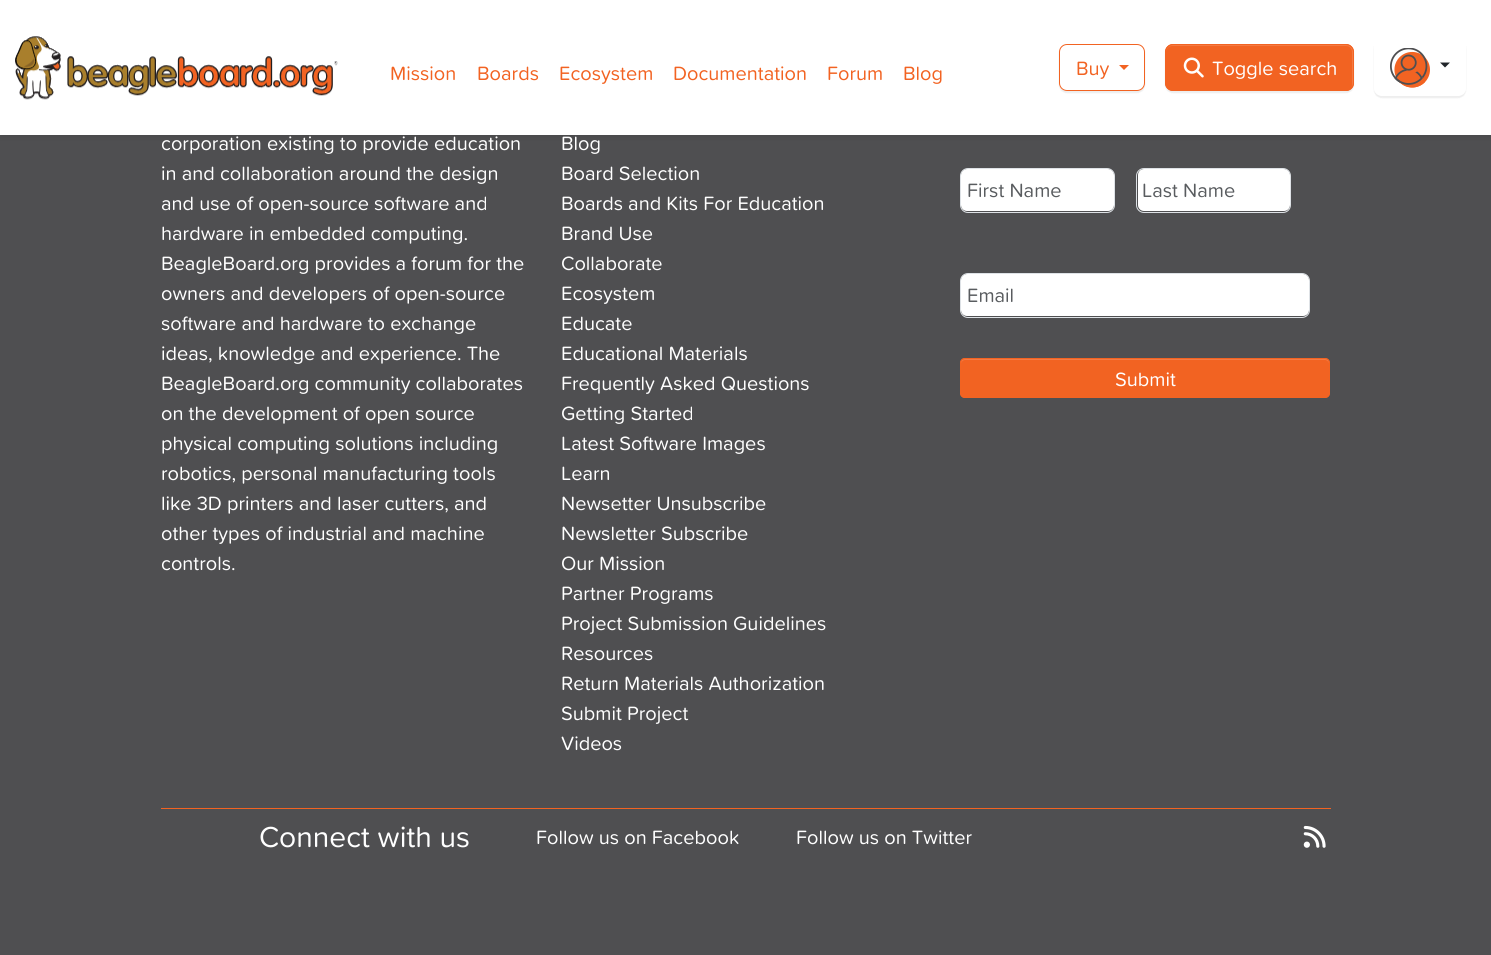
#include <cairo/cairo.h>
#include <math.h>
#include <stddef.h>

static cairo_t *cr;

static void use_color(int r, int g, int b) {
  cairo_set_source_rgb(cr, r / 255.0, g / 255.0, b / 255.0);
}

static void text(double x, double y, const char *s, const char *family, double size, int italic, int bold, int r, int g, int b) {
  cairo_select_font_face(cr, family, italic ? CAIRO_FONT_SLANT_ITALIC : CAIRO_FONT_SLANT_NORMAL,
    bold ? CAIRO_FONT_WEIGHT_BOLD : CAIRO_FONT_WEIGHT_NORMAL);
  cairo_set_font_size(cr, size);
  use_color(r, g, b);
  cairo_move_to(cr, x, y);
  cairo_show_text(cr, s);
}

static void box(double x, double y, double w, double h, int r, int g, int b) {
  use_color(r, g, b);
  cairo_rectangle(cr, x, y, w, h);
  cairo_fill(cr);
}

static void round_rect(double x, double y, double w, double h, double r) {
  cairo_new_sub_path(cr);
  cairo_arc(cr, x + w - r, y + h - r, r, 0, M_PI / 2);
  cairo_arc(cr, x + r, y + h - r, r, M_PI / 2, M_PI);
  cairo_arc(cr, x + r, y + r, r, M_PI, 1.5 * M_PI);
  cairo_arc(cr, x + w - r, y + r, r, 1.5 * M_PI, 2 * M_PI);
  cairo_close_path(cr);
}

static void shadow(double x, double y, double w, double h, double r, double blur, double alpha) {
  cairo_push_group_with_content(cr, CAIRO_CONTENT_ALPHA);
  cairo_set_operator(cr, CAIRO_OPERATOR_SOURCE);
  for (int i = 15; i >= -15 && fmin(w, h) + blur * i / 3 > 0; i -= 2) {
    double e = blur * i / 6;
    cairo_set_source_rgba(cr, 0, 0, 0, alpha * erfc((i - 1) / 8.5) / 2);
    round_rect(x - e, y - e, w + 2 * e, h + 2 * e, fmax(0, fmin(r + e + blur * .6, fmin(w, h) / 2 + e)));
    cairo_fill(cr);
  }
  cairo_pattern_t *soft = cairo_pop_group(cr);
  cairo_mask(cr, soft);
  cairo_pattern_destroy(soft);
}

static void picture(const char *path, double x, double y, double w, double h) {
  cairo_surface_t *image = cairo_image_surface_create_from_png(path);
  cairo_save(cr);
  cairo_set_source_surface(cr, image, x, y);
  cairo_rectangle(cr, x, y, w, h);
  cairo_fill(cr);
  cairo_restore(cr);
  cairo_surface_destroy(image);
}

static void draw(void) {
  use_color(79, 79, 81);
  cairo_paint(cr);
  use_color(0, 0, 0);
  shadow(0, 3, 1491, 135, 0, 2.5, 0.07);
  box(0, 0, 1491, 135, 255, 255, 255);
  picture("img_01.png", 15, 36, 323, 64);
  cairo_save(cr);
  cairo_set_fill_rule(cr, CAIRO_FILL_RULE_EVEN_ODD);
  cairo_new_path(cr);
  cairo_move_to(cr, 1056, 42);
  cairo_line_to(cr, 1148, 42);
  cairo_line_to(cr, 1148, 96);
  cairo_line_to(cr, 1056, 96);
  cairo_close_path(cr);
  cairo_move_to(cr, 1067, 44);
  cairo_line_to(cr, 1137, 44);
  cairo_curve_to(cr, 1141.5, 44, 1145, 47.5, 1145, 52);
  cairo_line_to(cr, 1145, 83);
  cairo_curve_to(cr, 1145, 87.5, 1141.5, 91, 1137, 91);
  cairo_line_to(cr, 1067, 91);
  cairo_curve_to(cr, 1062.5, 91, 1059, 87.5, 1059, 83);
  cairo_line_to(cr, 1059, 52);
  cairo_curve_to(cr, 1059, 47.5, 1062.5, 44, 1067, 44);
  cairo_close_path(cr);
  cairo_clip(cr);
  use_color(0, 0, 0);
  shadow(1059, 45, 86, 48, 8, 0.5, 0.07);
  cairo_restore(cr);
  round_rect(1059.5, 44.5, 85, 46, 7.5);
  use_color(242, 99, 34);
  cairo_set_line_width(cr, 1);
  cairo_stroke(cr);
  cairo_new_path(cr);
  cairo_move_to(cr, 1119, 65);
  cairo_line_to(cr, 1129, 65);
  cairo_line_to(cr, 1124, 70);
  cairo_close_path(cr);
  cairo_fill(cr);
  use_color(0, 0, 0);
  shadow(1165, 45, 189, 48, 8, 0.5, 0.07);
  use_color(242, 99, 34);
  round_rect(1165, 44, 189, 47, 8);
  cairo_fill(cr);
  use_color(244, 122, 67);
  cairo_new_path(cr);
  cairo_move_to(cr, 1172, 46);
  cairo_line_to(cr, 1346, 46);
  cairo_curve_to(cr, 1350, 46, 1352, 49, 1352, 52);
  cairo_line_to(cr, 1352, 85);
  cairo_curve_to(cr, 1352, 86, 1352, 87, 1351, 88);
  cairo_curve_to(cr, 1352, 87, 1353, 86, 1353, 84);
  cairo_line_to(cr, 1353, 51);
  cairo_curve_to(cr, 1353, 48, 1350, 45, 1347, 45);
  cairo_line_to(cr, 1172, 45);
  cairo_curve_to(cr, 1169, 45, 1166, 48, 1166, 51);
  cairo_line_to(cr, 1166, 52);
  cairo_curve_to(cr, 1166, 49, 1169, 46, 1172, 46);
  cairo_close_path(cr);
  cairo_fill(cr);
  round_rect(1165.5, 44.5, 188, 46, 7.5);
  use_color(242, 99, 34);
  cairo_stroke(cr);
  picture("img_02.png", 1183, 57, 21, 21);
  cairo_save(cr);
  cairo_set_fill_rule(cr, CAIRO_FILL_RULE_EVEN_ODD);
  cairo_new_path(cr);
  cairo_move_to(cr, 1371, 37);
  cairo_line_to(cr, 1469, 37);
  cairo_line_to(cr, 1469, 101);
  cairo_line_to(cr, 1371, 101);
  cairo_close_path(cr);
  cairo_move_to(cr, 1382, 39);
  cairo_line_to(cr, 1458, 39);
  cairo_curve_to(cr, 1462.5, 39, 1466, 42.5, 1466, 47);
  cairo_line_to(cr, 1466, 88);
  cairo_curve_to(cr, 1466, 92.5, 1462.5, 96, 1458, 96);
  cairo_line_to(cr, 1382, 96);
  cairo_curve_to(cr, 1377.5, 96, 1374, 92.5, 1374, 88);
  cairo_line_to(cr, 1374, 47);
  cairo_curve_to(cr, 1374, 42.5, 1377.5, 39, 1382, 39);
  cairo_close_path(cr);
  cairo_clip(cr);
  use_color(0, 0, 0);
  shadow(1374, 40, 92, 58, 8, 0.5, 0.07);
  cairo_restore(cr);
  picture("img_03.png", 1390, 48, 40, 40);
  use_color(33, 37, 41);
  cairo_new_path(cr);
  cairo_move_to(cr, 1440, 62.5);
  cairo_line_to(cr, 1450, 62.5);
  cairo_line_to(cr, 1445, 67.5);
  cairo_close_path(cr);
  cairo_fill(cr);
  use_color(255, 255, 255);
  round_rect(961, 169, 153, 42, 6);
  cairo_fill(cr);
  round_rect(960.5, 168.5, 154, 44, 7.5);
  use_color(222, 226, 230);
  cairo_stroke(cr);
  use_color(255, 255, 255);
  round_rect(1138, 169, 152, 42, 6);
  cairo_fill(cr);
  round_rect(1136.5, 168.5, 154, 44, 7.5);
  use_color(222, 226, 230);
  cairo_stroke(cr);
  use_color(255, 255, 255);
  round_rect(961, 274, 348, 42, 6);
  cairo_fill(cr);
  round_rect(960.5, 273.5, 349, 44, 7.5);
  use_color(222, 226, 230);
  cairo_stroke(cr);
  use_color(242, 99, 34);
  round_rect(960, 358, 370, 40, 5);
  cairo_fill(cr);
  use_color(244, 122, 67);
  cairo_new_path(cr);
  cairo_move_to(cr, 965, 360);
  cairo_line_to(cr, 1325, 360);
  cairo_curve_to(cr, 1327, 360, 1329, 362, 1329, 364);
  cairo_curve_to(cr, 1329, 361, 1328, 359, 1325, 359);
  cairo_line_to(cr, 965, 359);
  cairo_curve_to(cr, 962, 359, 961, 361, 961, 364);
  cairo_curve_to(cr, 961, 362, 963, 360, 965, 360);
  cairo_close_path(cr);
  cairo_fill(cr);
  round_rect(960.5, 358.5, 369, 39, 4.5);
  use_color(242, 99, 34);
  cairo_stroke(cr);
  box(161, 808, 1170, 1, 242, 99, 34);
  picture("img_04.png", 1303, 825, 23, 23);
  text(390, 80, "Mission", "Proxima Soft", 20, 0, 0, 242, 99, 34);
  text(477, 80, "Boards", "Proxima Soft", 20, 0, 0, 242, 99, 34);
  text(559, 80, "Ecosystem", "Proxima Soft", 20, 0, 0, 242, 99, 34);
  text(673, 80, "Documentation", "Proxima Soft", 20, 0, 0, 242, 99, 34);
  text(827, 80, "Forum", "Proxima Soft", 20, 0, 0, 242, 99, 34);
  text(903, 80, "Blog", "Proxima Soft", 20, 0, 0, 242, 99, 34);
  text(1076, 75, "Buy", "Proxima Soft", 20, 0, 0, 242, 99, 34);
  text(1212, 75, "Toggle search", "Proxima Soft", 20, 0, 0, 255, 255, 255);
  text(161, 150, "corporation existing to provide education", "Proxima Soft", 20, 0, 0, 255, 255, 255);
  text(161, 180, "in and collaboration around the design", "Proxima Soft", 20, 0, 0, 255, 255, 255);
  text(161, 210, "and use of open-source software and", "Proxima Soft", 20, 0, 0, 255, 255, 255);
  text(161, 240, "hardware in embedded computing.", "Proxima Soft", 20, 0, 0, 255, 255, 255);
  text(161, 270, "BeagleBoard.org provides a forum for the", "Proxima Soft", 20, 0, 0, 255, 255, 255);
  text(161, 300, "owners and developers of open-source", "Proxima Soft", 20, 0, 0, 255, 255, 255);
  text(161, 330, "software and hardware to exchange", "Proxima Soft", 20, 0, 0, 255, 255, 255);
  text(161, 360, "ideas, knowledge and experience. The", "Proxima Soft", 20, 0, 0, 255, 255, 255);
  text(161, 390, "BeagleBoard.org community collaborates", "Proxima Soft", 20, 0, 0, 255, 255, 255);
  text(161, 420, "on the development of open source", "Proxima Soft", 20, 0, 0, 255, 255, 255);
  text(161, 450, "physical computing solutions including", "Proxima Soft", 20, 0, 0, 255, 255, 255);
  text(161, 480, "robotics, personal manufacturing tools", "Proxima Soft", 20, 0, 0, 255, 255, 255);
  text(161, 510, "like 3D printers and laser cutters, and", "Proxima Soft", 20, 0, 0, 255, 255, 255);
  text(161, 540, "other types of industrial and machine", "Proxima Soft", 20, 0, 0, 255, 255, 255);
  text(161, 570, "controls.", "Proxima Soft", 20, 0, 0, 255, 255, 255);
  text(561, 150, "Blog", "Proxima Soft", 20, 0, 0, 255, 255, 255);
  text(561, 180, "Board Selection", "Proxima Soft", 20, 0, 0, 255, 255, 255);
  text(561, 210, "Boards and Kits For Education", "Proxima Soft", 20, 0, 0, 255, 255, 255);
  text(561, 240, "Brand Use", "Proxima Soft", 20, 0, 0, 255, 255, 255);
  text(561, 270, "Collaborate", "Proxima Soft", 20, 0, 0, 255, 255, 255);
  text(561, 300, "Ecosystem", "Proxima Soft", 20, 0, 0, 255, 255, 255);
  text(561, 330, "Educate", "Proxima Soft", 20, 0, 0, 255, 255, 255);
  text(561, 360, "Educational Materials", "Proxima Soft", 20, 0, 0, 255, 255, 255);
  text(561, 390, "Frequently Asked Questions", "Proxima Soft", 20, 0, 0, 255, 255, 255);
  text(561, 420, "Getting Started", "Proxima Soft", 20, 0, 0, 255, 255, 255);
  text(561, 450, "Latest Software Images", "Proxima Soft", 20, 0, 0, 255, 255, 255);
  text(561, 480, "Learn", "Proxima Soft", 20, 0, 0, 255, 255, 255);
  text(561, 510, "Newsetter Unsubscribe", "Proxima Soft", 20, 0, 0, 255, 255, 255);
  text(561, 540, "Newsletter Subscribe", "Proxima Soft", 20, 0, 0, 255, 255, 255);
  text(561, 570, "Our Mission", "Proxima Soft", 20, 0, 0, 255, 255, 255);
  text(561, 600, "Partner Programs", "Proxima Soft", 20, 0, 0, 255, 255, 255);
  text(561, 630, "Project Submission Guidelines", "Proxima Soft", 20, 0, 0, 255, 255, 255);
  text(561, 660, "Resources", "Proxima Soft", 20, 0, 0, 255, 255, 255);
  text(561, 690, "Return Materials Authorization", "Proxima Soft", 20, 0, 0, 255, 255, 255);
  text(561, 720, "Submit Project", "Proxima Soft", 20, 0, 0, 255, 255, 255);
  text(561, 750, "Videos", "Proxima Soft", 20, 0, 0, 255, 255, 255);
  text(967, 197, "First Name", "Proxima Soft", 20, 0, 0, 89, 92, 95);
  text(1142, 197, "Last Name", "Proxima Soft", 20, 0, 0, 89, 92, 95);
  text(967, 302, "Email", "Proxima Soft", 20, 0, 0, 89, 92, 95);
  text(1115, 386, "Submit", "Proxima Soft", 20, 0, 0, 255, 255, 255);
  text(259, 847, "Connect with us", "Proxima Soft", 30, 0, 0, 255, 255, 255);
  text(536, 844, "Follow us on Facebook", "Proxima Soft", 20, 0, 0, 255, 255, 255);
  text(796, 844, "Follow us on Twitter", "Proxima Soft", 20, 0, 0, 255, 255, 255);
}

int main(void) {
  cairo_surface_t *surface = cairo_image_surface_create(CAIRO_FORMAT_RGB24, 1491, 955);
  cr = cairo_create(surface);
  cairo_font_options_t *options = cairo_font_options_create();
  cairo_font_options_set_hint_metrics(options, CAIRO_HINT_METRICS_OFF);
  cairo_font_options_set_hint_style(options, CAIRO_HINT_STYLE_NONE);
  cairo_set_font_options(cr, options);
  cairo_set_miter_limit(cr, 4);
  draw();
  cairo_surface_write_to_png(surface, "out.png");
  cairo_font_options_destroy(options);
  cairo_destroy(cr);
  cairo_surface_destroy(surface);
  return 0;
}
